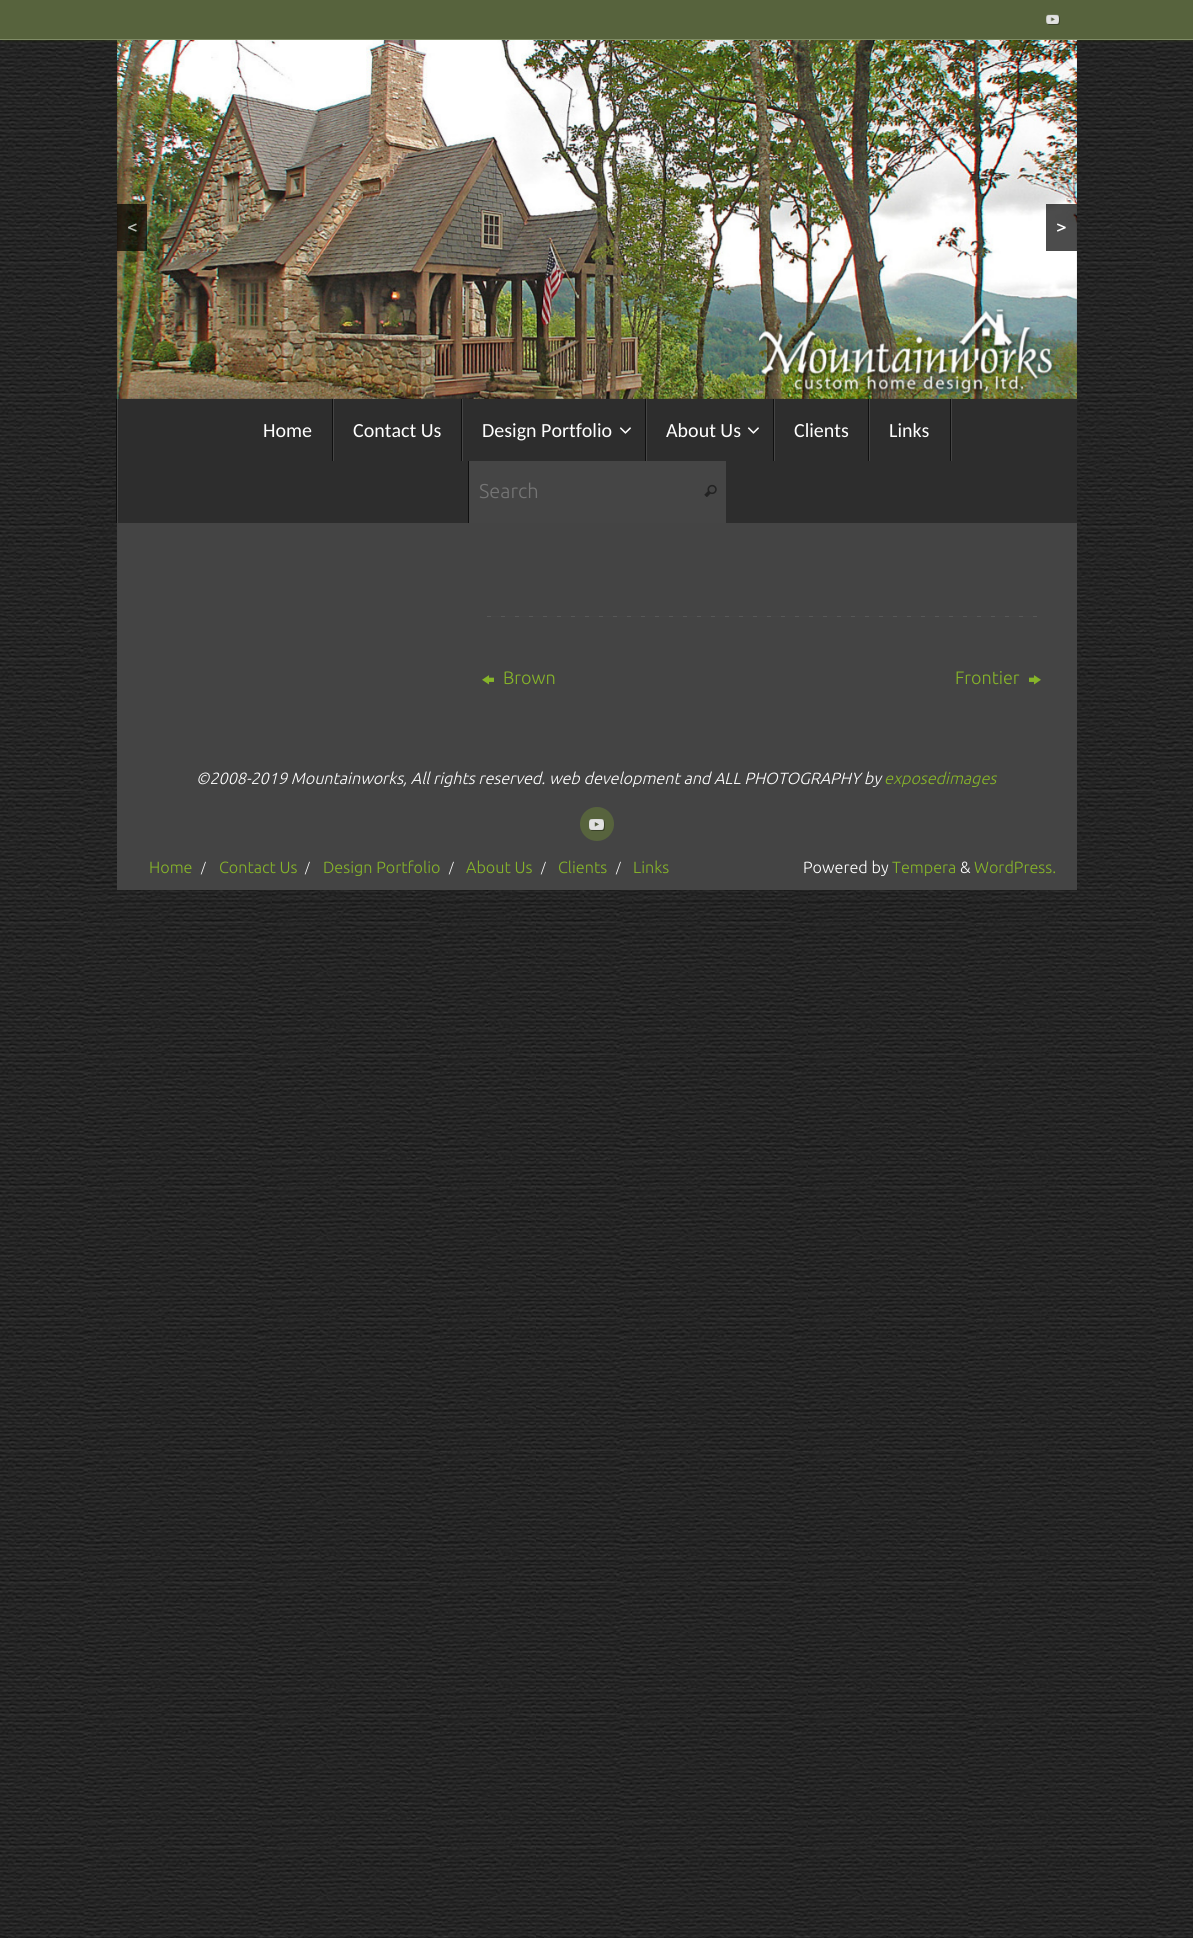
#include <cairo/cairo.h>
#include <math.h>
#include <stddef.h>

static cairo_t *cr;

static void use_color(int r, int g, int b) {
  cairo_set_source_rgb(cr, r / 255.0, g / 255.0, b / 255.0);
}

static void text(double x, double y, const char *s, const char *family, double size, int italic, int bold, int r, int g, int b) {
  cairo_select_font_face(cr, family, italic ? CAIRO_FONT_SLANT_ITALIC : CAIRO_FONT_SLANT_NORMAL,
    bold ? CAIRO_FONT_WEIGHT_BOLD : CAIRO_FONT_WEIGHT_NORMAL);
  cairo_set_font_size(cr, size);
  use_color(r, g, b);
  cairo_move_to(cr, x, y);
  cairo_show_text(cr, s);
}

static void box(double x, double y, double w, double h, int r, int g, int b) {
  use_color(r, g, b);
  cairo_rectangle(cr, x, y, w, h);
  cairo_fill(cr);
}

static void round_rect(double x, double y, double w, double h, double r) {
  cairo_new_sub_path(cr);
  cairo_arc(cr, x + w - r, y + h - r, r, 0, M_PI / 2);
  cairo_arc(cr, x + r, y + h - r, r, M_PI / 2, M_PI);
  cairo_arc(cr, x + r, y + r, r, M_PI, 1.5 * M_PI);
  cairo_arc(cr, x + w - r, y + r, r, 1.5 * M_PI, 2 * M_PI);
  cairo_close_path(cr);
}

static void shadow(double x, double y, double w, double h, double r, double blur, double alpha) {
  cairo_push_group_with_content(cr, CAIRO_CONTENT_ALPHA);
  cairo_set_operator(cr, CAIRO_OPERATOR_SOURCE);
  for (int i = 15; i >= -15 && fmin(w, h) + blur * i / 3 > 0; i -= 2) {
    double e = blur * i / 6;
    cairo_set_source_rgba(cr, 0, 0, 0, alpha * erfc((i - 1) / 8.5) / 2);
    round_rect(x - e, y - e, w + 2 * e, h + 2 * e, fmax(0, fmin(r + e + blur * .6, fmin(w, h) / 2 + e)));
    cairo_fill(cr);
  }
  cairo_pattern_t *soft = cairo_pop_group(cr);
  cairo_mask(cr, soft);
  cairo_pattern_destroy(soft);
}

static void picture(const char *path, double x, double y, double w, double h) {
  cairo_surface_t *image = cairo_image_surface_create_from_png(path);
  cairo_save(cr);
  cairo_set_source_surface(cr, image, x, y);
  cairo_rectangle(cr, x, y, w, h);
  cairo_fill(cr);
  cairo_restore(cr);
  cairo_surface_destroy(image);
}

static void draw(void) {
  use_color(255, 255, 255);
  cairo_paint(cr);
  picture("img_01.png", 0, 40, 1193, 1898);
  use_color(47, 59, 21);
  shadow(3, 0, 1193, 40, 0, 1.5, 1);
  box(0, 0, 1193, 39, 87, 99, 61);
  box(0, 39, 1193, 1, 127, 139, 101);
  picture("img_02.png", 1046, 14, 14, 11);
  picture("img_03.png", 117, 40, 960, 359);
  cairo_set_source_rgba(cr, 0, 0, 0, 0.7);
  cairo_rectangle(cr, 117, 204, 30, 47);
  cairo_fill(cr);
  cairo_rectangle(cr, 1046, 204, 31, 47);
  cairo_fill(cr);
  box(118, 399, 959, 124, 45, 45, 45);
  box(116, 399, 1, 124, 15, 15, 15);
  box(117, 399, 1, 124, 69, 69, 69);
  box(333, 399, 1, 62, 69, 69, 69);
  box(332, 399, 1, 62, 15, 15, 15);
  box(462, 399, 1, 62, 69, 69, 69);
  box(461, 399, 1, 62, 15, 15, 15);
  box(646, 399, 1, 62, 69, 69, 69);
  box(645, 399, 1, 62, 15, 15, 15);
  picture("img_04.png", 619, 427, 12, 7);
  box(774, 399, 1, 62, 69, 69, 69);
  box(773, 399, 1, 62, 15, 15, 15);
  picture("img_04.png", 747, 427, 12, 7);
  box(869, 399, 1, 62, 69, 69, 69);
  box(868, 399, 1, 62, 15, 15, 15);
  box(951, 399, 1, 62, 69, 69, 69);
  box(950, 399, 1, 62, 15, 15, 15);
  box(469, 461, 257, 62, 69, 69, 69);
  box(468, 461, 1, 62, 15, 15, 15);
  picture("img_05.png", 704, 484, 13, 13);
  box(117, 523, 960, 367, 68, 68, 68);
  picture("img_06.png", 487, 616, 550, 1);
  picture("img_07.png", 482, 675, 12, 10);
  picture("img_08.png", 1029, 675, 12, 10);
  use_color(87, 99, 61);
  cairo_arc(cr, 597, 824, 17, 0, 2 * M_PI);
  cairo_fill(cr);
  picture("img_09.png", 589, 819, 16, 12);
  text(127, 233, "<", "Ubuntu", 18, 0, 1, 185, 187, 182);
  text(1056, 233, ">", "Ubuntu", 18, 0, 1, 255, 255, 255);
  text(263, 437, "Home", "Carlito", 20, 0, 0, 255, 255, 255);
  text(353, 437, "Contact Us", "Carlito", 20, 0, 0, 255, 255, 255);
  text(482, 437, "Design Portfolio", "Carlito", 20, 0, 0, 255, 255, 255);
  text(666, 437, "About Us", "Carlito", 20, 0, 0, 255, 255, 255);
  text(794, 437, "Clients", "Carlito", 20, 0, 0, 255, 255, 255);
  text(889, 437, "Links", "Carlito", 20, 0, 0, 255, 255, 255);
  text(479, 498, "Search", "Ubuntu Light", 20, 0, 0, 117, 117, 117);
  text(503, 684, "Brown", "Ubuntu Light", 18, 0, 0, 134, 180, 41);
  text(955, 684, "Frontier", "Ubuntu Light", 18, 0, 0, 134, 180, 41);
  text(196, 784, "©2008-2019 Mountainworks, All rights reserved. web development and ALL PHOTOGRAPHY by", "Ubuntu Light", 16.2, 1, 0, 255, 255, 255);
  text(884, 784, "exposedimages", "Ubuntu Light", 16.2, 1, 0, 134, 180, 41);
  text(149, 873, "Home", "Ubuntu Light", 16.2, 0, 0, 134, 180, 41);
  text(201, 872, "/", "Ubuntu Light", 13, 0, 0, 255, 255, 255);
  text(219, 873, "Contact Us", "Ubuntu Light", 16.2, 0, 0, 134, 180, 41);
  text(305, 872, "/", "Ubuntu Light", 13, 0, 0, 255, 255, 255);
  text(323, 873, "Design Portfolio", "Ubuntu Light", 16.2, 0, 0, 134, 180, 41);
  text(449, 872, "/", "Ubuntu Light", 13, 0, 0, 255, 255, 255);
  text(466, 873, "About Us", "Ubuntu Light", 16.2, 0, 0, 134, 180, 41);
  text(541, 872, "/", "Ubuntu Light", 13, 0, 0, 255, 255, 255);
  text(558, 873, "Clients", "Ubuntu Light", 16.2, 0, 0, 134, 180, 41);
  text(616, 872, "/", "Ubuntu Light", 13, 0, 0, 255, 255, 255);
  text(633, 873, "Links", "Ubuntu Light", 16.2, 0, 0, 134, 180, 41);
  text(803, 873, "Powered by", "Ubuntu Light", 16.2, 0, 0, 255, 255, 255);
  text(892, 873, "Tempera", "Ubuntu Light", 16.2, 0, 0, 134, 180, 41);
  text(960, 873, "&", "Ubuntu Light", 16.2, 0, 0, 255, 255, 255);
  text(974, 873, "WordPress.", "Ubuntu Light", 16.2, 0, 0, 134, 180, 41);
}

int main(void) {
  cairo_surface_t *surface = cairo_image_surface_create(CAIRO_FORMAT_RGB24, 1193, 1938);
  cr = cairo_create(surface);
  cairo_font_options_t *options = cairo_font_options_create();
  cairo_font_options_set_hint_metrics(options, CAIRO_HINT_METRICS_OFF);
  cairo_font_options_set_hint_style(options, CAIRO_HINT_STYLE_NONE);
  cairo_set_font_options(cr, options);
  cairo_set_miter_limit(cr, 4);
  draw();
  cairo_surface_write_to_png(surface, "out.png");
  cairo_font_options_destroy(options);
  cairo_destroy(cr);
  cairo_surface_destroy(surface);
  return 0;
}
